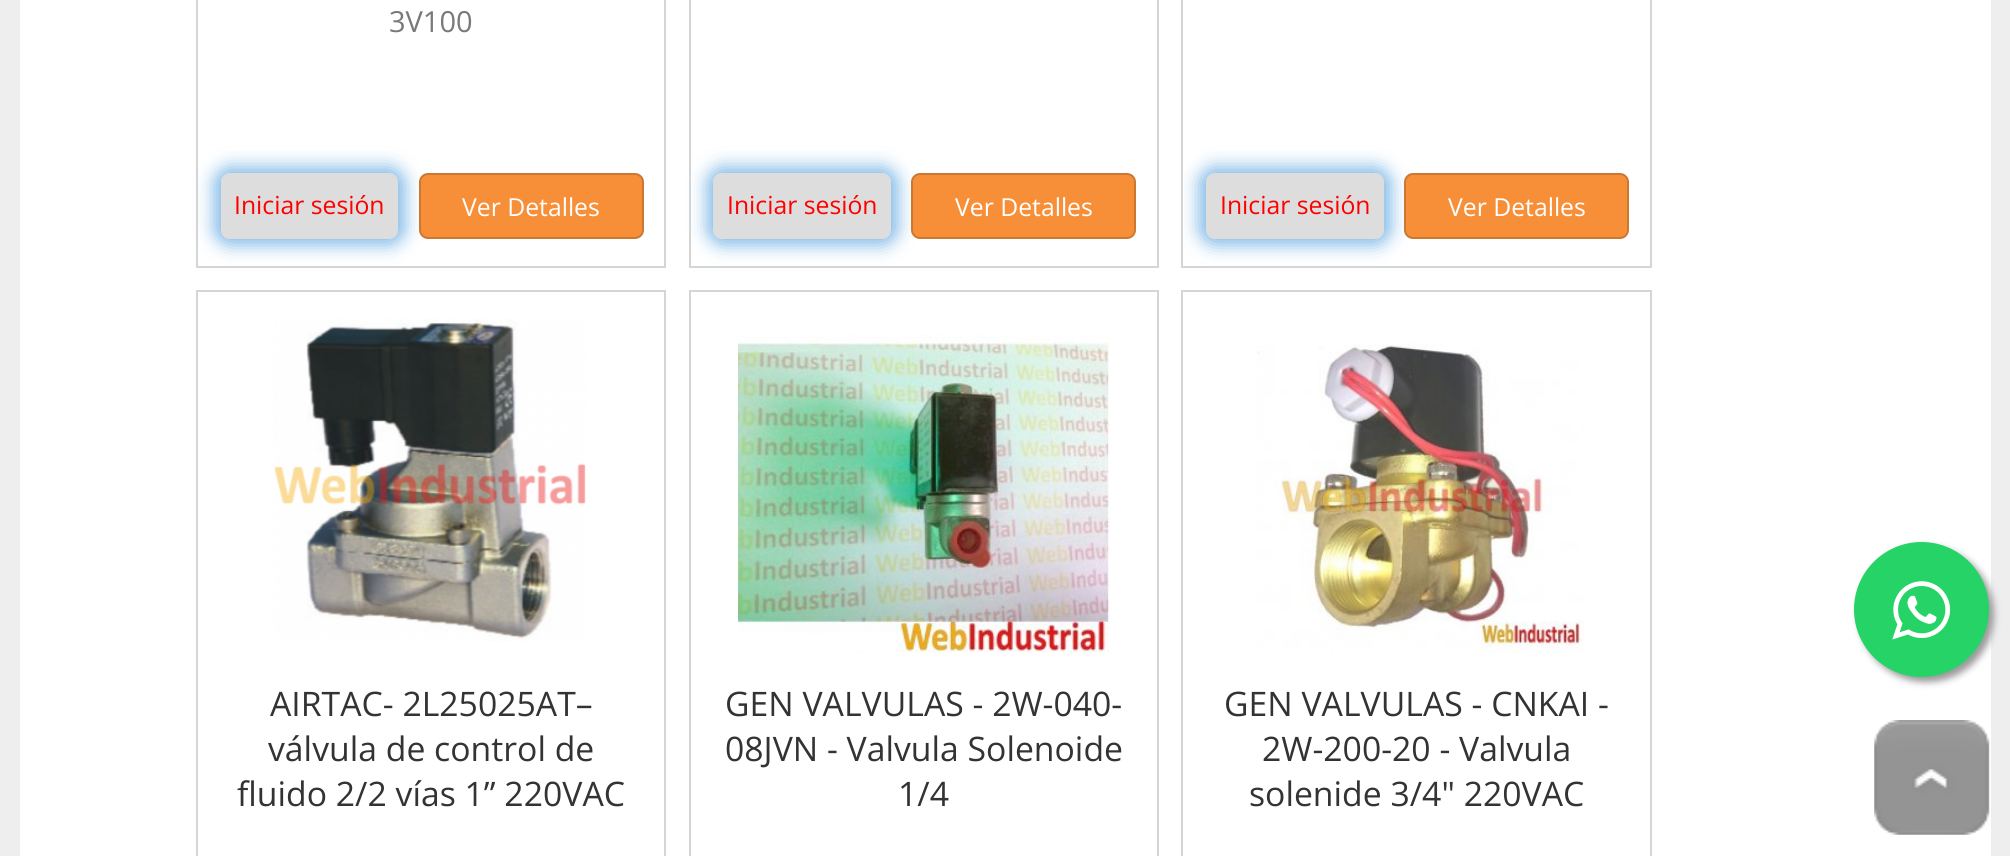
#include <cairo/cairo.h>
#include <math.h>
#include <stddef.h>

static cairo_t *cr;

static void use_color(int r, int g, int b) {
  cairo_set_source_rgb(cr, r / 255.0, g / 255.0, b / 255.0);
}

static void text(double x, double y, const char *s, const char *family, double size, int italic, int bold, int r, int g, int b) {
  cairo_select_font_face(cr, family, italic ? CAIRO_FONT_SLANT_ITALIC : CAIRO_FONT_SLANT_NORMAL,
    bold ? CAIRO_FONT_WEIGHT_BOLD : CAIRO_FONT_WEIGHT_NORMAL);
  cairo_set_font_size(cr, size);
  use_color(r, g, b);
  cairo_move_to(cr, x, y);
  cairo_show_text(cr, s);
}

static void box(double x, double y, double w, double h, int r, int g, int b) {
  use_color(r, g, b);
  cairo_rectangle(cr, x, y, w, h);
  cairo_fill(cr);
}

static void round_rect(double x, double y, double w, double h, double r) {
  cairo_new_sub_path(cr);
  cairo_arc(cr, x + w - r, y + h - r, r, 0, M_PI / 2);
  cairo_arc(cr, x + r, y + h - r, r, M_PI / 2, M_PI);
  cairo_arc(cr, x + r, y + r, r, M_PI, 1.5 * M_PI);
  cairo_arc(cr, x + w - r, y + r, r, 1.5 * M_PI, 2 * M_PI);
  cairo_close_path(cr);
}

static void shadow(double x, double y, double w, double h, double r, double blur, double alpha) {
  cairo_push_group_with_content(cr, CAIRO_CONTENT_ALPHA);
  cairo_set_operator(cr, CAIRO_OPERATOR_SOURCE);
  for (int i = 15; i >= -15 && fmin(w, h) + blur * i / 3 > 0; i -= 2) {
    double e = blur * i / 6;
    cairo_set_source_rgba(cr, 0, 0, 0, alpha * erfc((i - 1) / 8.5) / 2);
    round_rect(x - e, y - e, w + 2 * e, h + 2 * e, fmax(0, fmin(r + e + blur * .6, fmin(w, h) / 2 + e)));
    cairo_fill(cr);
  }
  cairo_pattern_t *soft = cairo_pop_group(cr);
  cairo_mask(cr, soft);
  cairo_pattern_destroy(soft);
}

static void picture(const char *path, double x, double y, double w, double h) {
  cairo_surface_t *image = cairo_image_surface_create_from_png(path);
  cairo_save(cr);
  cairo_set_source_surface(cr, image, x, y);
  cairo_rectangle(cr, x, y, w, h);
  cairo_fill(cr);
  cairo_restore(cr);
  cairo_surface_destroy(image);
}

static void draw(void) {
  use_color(238, 238, 238);
  cairo_paint(cr);
  box(20, 0, 1971, 856, 255, 255, 255);
  cairo_rectangle(cr, 197, -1, 468, 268);
  use_color(212, 213, 213);
  cairo_stroke(cr);
  use_color(0, 116, 208);
  shadow(214, 167, 191, 78, 16, 9, 0.5);
  use_color(221, 221, 221);
  round_rect(221, 173, 177, 66, 9);
  cairo_fill(cr);
  use_color(246, 143, 56);
  round_rect(420, 174, 223, 64, 8);
  cairo_fill_preserve(cr);
  use_color(202, 120, 50);
  cairo_stroke(cr);
  cairo_rectangle(cr, 690, -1, 468, 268);
  use_color(212, 213, 213);
  cairo_stroke(cr);
  use_color(0, 116, 208);
  shadow(707, 167, 191, 78, 16, 9, 0.5);
  use_color(221, 221, 221);
  round_rect(713, 173, 178, 66, 9);
  cairo_fill(cr);
  use_color(246, 143, 56);
  round_rect(912, 174, 223, 64, 8);
  cairo_fill_preserve(cr);
  use_color(202, 120, 50);
  cairo_stroke(cr);
  cairo_rectangle(cr, 1182, -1, 469, 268);
  use_color(212, 213, 213);
  cairo_stroke(cr);
  cairo_save(cr);
  cairo_rectangle(cr, 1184, 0, 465, 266);
  cairo_clip(cr);
  use_color(0, 116, 208);
  shadow(1199, 167, 192, 78, 16, 9, 0.5);
  cairo_restore(cr);
  use_color(221, 221, 221);
  round_rect(1206, 173, 178, 66, 9);
  cairo_fill(cr);
  use_color(246, 143, 56);
  round_rect(1405, 174, 223, 64, 8);
  cairo_fill_preserve(cr);
  use_color(202, 120, 50);
  cairo_stroke(cr);
  cairo_rectangle(cr, 197, 291, 468, 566);
  use_color(212, 213, 213);
  cairo_stroke(cr);
  picture("img_01.png", 274, 319, 312, 322);
  cairo_rectangle(cr, 690, 291, 468, 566);
  cairo_stroke(cr);
  picture("img_02.png", 738, 335, 372, 318);
  cairo_rectangle(cr, 1182, 291, 469, 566);
  cairo_stroke(cr);
  picture("img_03.png", 1257, 343, 327, 310);
  use_color(153, 153, 153);
  shadow(1859, 547, 135, 135, 67.5, 3.5, 1);
  use_color(37, 211, 102);
  cairo_arc(cr, 1921.5, 609.5, 67.5, 0, 2 * M_PI);
  cairo_fill(cr);
  picture("img_04.png", 1892, 581, 59, 59);
  picture("img_05.png", 1874, 720, 116, 115);
  text(389, 32, "3V100", "Open Sans", 29, 0, 0, 120, 121, 121);
  text(234, 214, "Iniciar sesión", "Open Sans", 24.75, 0, 0, 255, 0, 0);
  text(462, 216, "Ver Detalles", "Open Sans", 24.75, 0, 0, 255, 255, 255);
  text(727, 214, "Iniciar sesión", "Open Sans", 24.75, 0, 0, 255, 0, 0);
  text(955, 216, "Ver Detalles", "Open Sans", 24.75, 0, 0, 255, 255, 255);
  text(1220, 214, "Iniciar sesión", "Open Sans", 24.75, 0, 0, 255, 0, 0);
  text(1448, 216, "Ver Detalles", "Open Sans", 24.75, 0, 0, 255, 255, 255);
  text(270, 716, "AIRTAC- 2L25025AT–", "Open Sans", 33.75, 0, 0, 51, 51, 51);
  text(268, 761, "válvula de control de", "Open Sans", 33.75, 0, 0, 51, 51, 51);
  text(237, 806, "fluido 2/2 vías 1” 220VAC", "Open Sans", 33.75, 0, 0, 51, 51, 51);
  text(725, 716, "GEN VALVULAS - 2W-040-", "Open Sans", 33.75, 0, 0, 51, 51, 51);
  text(725, 761, "08JVN - Valvula Solenoide", "Open Sans", 33.75, 0, 0, 51, 51, 51);
  text(898, 806, "1/4", "Open Sans", 33.75, 0, 0, 51, 51, 51);
  text(1224, 716, "GEN VALVULAS - CNKAI -", "Open Sans", 33.75, 0, 0, 51, 51, 51);
  text(1262, 761, "2W-200-20 - Valvula", "Open Sans", 33.75, 0, 0, 51, 51, 51);
  text(1249, 806, "solenide 3/4\" 220VAC", "Open Sans", 33.75, 0, 0, 51, 51, 51);
}

int main(void) {
  cairo_surface_t *surface = cairo_image_surface_create(CAIRO_FORMAT_RGB24, 2010, 856);
  cr = cairo_create(surface);
  cairo_font_options_t *options = cairo_font_options_create();
  cairo_font_options_set_hint_metrics(options, CAIRO_HINT_METRICS_OFF);
  cairo_font_options_set_hint_style(options, CAIRO_HINT_STYLE_NONE);
  cairo_set_font_options(cr, options);
  cairo_set_miter_limit(cr, 4);
  draw();
  cairo_surface_write_to_png(surface, "out.png");
  cairo_font_options_destroy(options);
  cairo_destroy(cr);
  cairo_surface_destroy(surface);
  return 0;
}
